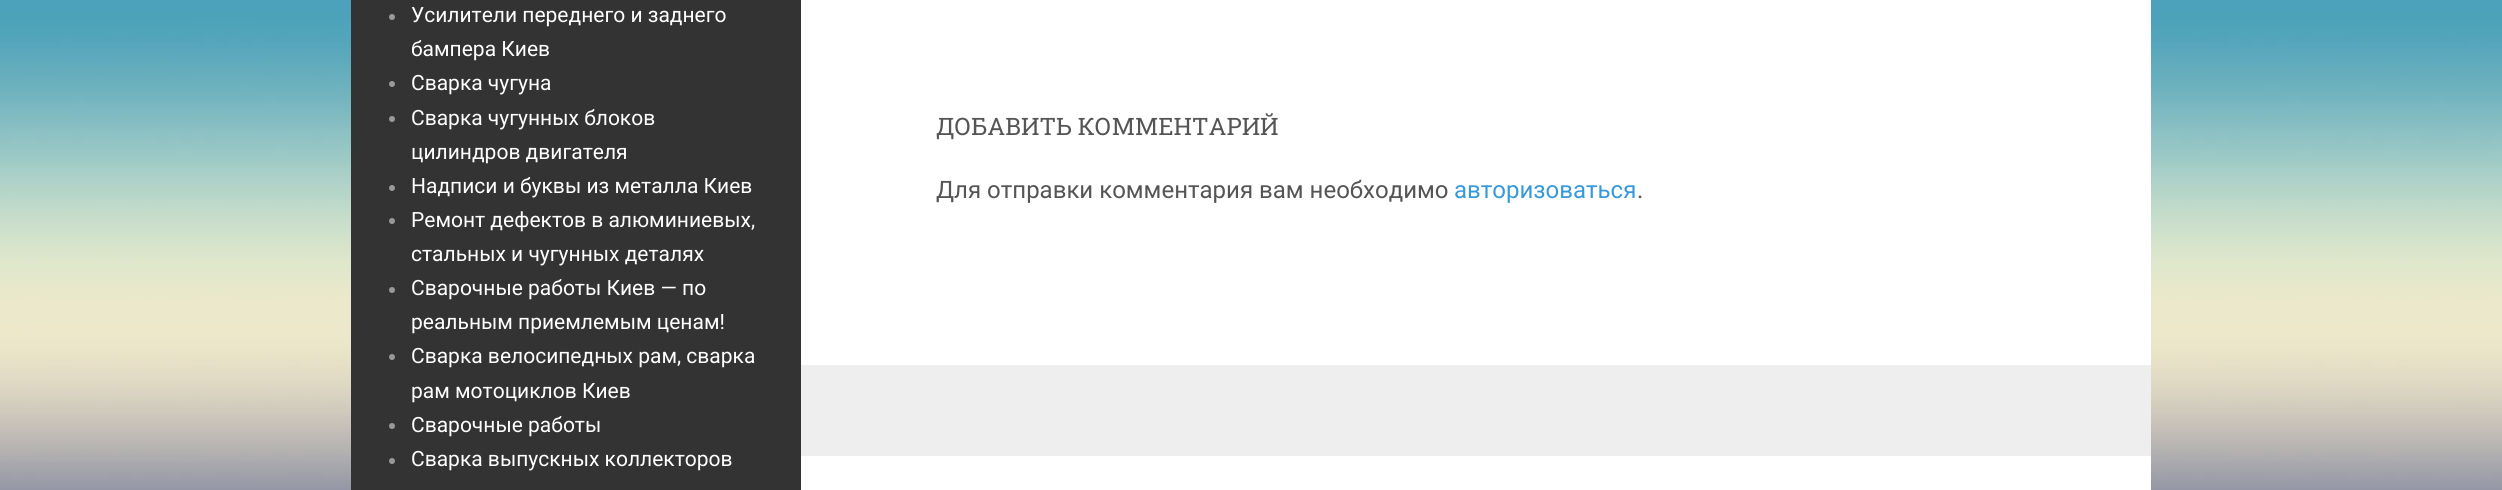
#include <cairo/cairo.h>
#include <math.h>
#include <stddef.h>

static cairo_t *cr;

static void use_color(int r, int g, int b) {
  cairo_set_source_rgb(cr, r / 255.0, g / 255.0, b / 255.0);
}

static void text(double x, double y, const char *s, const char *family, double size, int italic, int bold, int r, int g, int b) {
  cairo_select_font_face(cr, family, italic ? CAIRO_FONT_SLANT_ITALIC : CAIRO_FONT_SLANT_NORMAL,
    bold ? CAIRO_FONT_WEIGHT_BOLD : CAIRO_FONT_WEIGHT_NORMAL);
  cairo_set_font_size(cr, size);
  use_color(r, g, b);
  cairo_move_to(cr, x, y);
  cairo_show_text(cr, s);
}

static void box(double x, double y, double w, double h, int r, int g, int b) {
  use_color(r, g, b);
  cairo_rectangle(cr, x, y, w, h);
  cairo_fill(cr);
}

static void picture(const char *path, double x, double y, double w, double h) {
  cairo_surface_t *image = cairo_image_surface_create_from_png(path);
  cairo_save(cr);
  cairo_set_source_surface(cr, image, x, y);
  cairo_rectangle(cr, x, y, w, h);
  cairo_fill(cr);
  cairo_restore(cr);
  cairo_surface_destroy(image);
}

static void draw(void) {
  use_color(255, 255, 255);
  cairo_paint(cr);
  picture("img_01.png", 0, 0, 2502, 490);
  box(801, 0, 1350, 490, 255, 255, 255);
  box(351, 0, 450, 490, 51, 51, 51);
  use_color(153, 153, 153);
  cairo_arc(cr, 392, 17, 3, 0, 2 * M_PI);
  cairo_fill(cr);
  cairo_arc(cr, 392, 84, 3, 0, 2 * M_PI);
  cairo_fill(cr);
  cairo_arc(cr, 392, 119, 3, 0, 2 * M_PI);
  cairo_fill(cr);
  cairo_arc(cr, 392, 188, 3, 0, 2 * M_PI);
  cairo_fill(cr);
  cairo_arc(cr, 392, 221, 3, 0, 2 * M_PI);
  cairo_fill(cr);
  cairo_arc(cr, 392, 290, 3, 0, 2 * M_PI);
  cairo_fill(cr);
  cairo_arc(cr, 392, 357, 3, 0, 2 * M_PI);
  cairo_fill(cr);
  cairo_arc(cr, 392, 426, 3, 0, 2 * M_PI);
  cairo_fill(cr);
  cairo_arc(cr, 392, 461, 3, 0, 2 * M_PI);
  cairo_fill(cr);
  box(801, 365, 1350, 91, 238, 238, 238);
  text(411, 22, "Усилители переднего и заднего", "Roboto", 21, 0, 0, 255, 255, 255);
  text(411, 56, "бампера Киев", "Roboto", 21, 0, 0, 255, 255, 255);
  text(411, 90, "Сварка чугуна", "Roboto", 21, 0, 0, 255, 255, 255);
  text(411, 125, "Сварка чугунных блоков", "Roboto", 21, 0, 0, 255, 255, 255);
  text(411, 159, "цилиндров двигателя", "Roboto", 21, 0, 0, 255, 255, 255);
  text(411, 193, "Надписи и буквы из металла Киев", "Roboto", 21, 0, 0, 255, 255, 255);
  text(411, 227, "Рeмoнт дeфeктов в алюминиeвых,", "Roboto", 21, 0, 0, 255, 255, 255);
  text(411, 261, "стaльных и чугунных дeтaлях", "Roboto", 21, 0, 0, 255, 255, 255);
  text(411, 295, "Сварочные работы Киев — по", "Roboto", 21, 0, 0, 255, 255, 255);
  text(411, 329, "реальным приемлемым ценам!", "Roboto", 21, 0, 0, 255, 255, 255);
  text(411, 363, "Сварка велосипедных рам, сварка", "Roboto", 21, 0, 0, 255, 255, 255);
  text(411, 398, "рам мотоциклов Киев", "Roboto", 21, 0, 0, 255, 255, 255);
  text(411, 432, "Сварочные работы", "Roboto", 21, 0, 0, 255, 255, 255);
  text(411, 466, "Сварка выпускных коллекторов", "Roboto", 21, 0, 0, 255, 255, 255);
  text(936, 135, "ДОБАВИТЬ КОММЕНТАРИЙ", "Roboto Slab", 24, 0, 0, 85, 85, 85);
  text(936, 198, "Для отправки комментария вам необходимо", "Roboto", 24, 0, 0, 85, 85, 85);
  text(1454, 198, "авторизоваться", "Roboto", 24, 0, 0, 54, 153, 220);
  text(1637, 198, ".", "Roboto", 24, 0, 0, 85, 85, 85);
}

int main(void) {
  cairo_surface_t *surface = cairo_image_surface_create(CAIRO_FORMAT_RGB24, 2502, 490);
  cr = cairo_create(surface);
  cairo_font_options_t *options = cairo_font_options_create();
  cairo_font_options_set_hint_metrics(options, CAIRO_HINT_METRICS_OFF);
  cairo_font_options_set_hint_style(options, CAIRO_HINT_STYLE_NONE);
  cairo_set_font_options(cr, options);
  cairo_set_miter_limit(cr, 4);
  draw();
  cairo_surface_write_to_png(surface, "out.png");
  cairo_font_options_destroy(options);
  cairo_destroy(cr);
  cairo_surface_destroy(surface);
  return 0;
}
